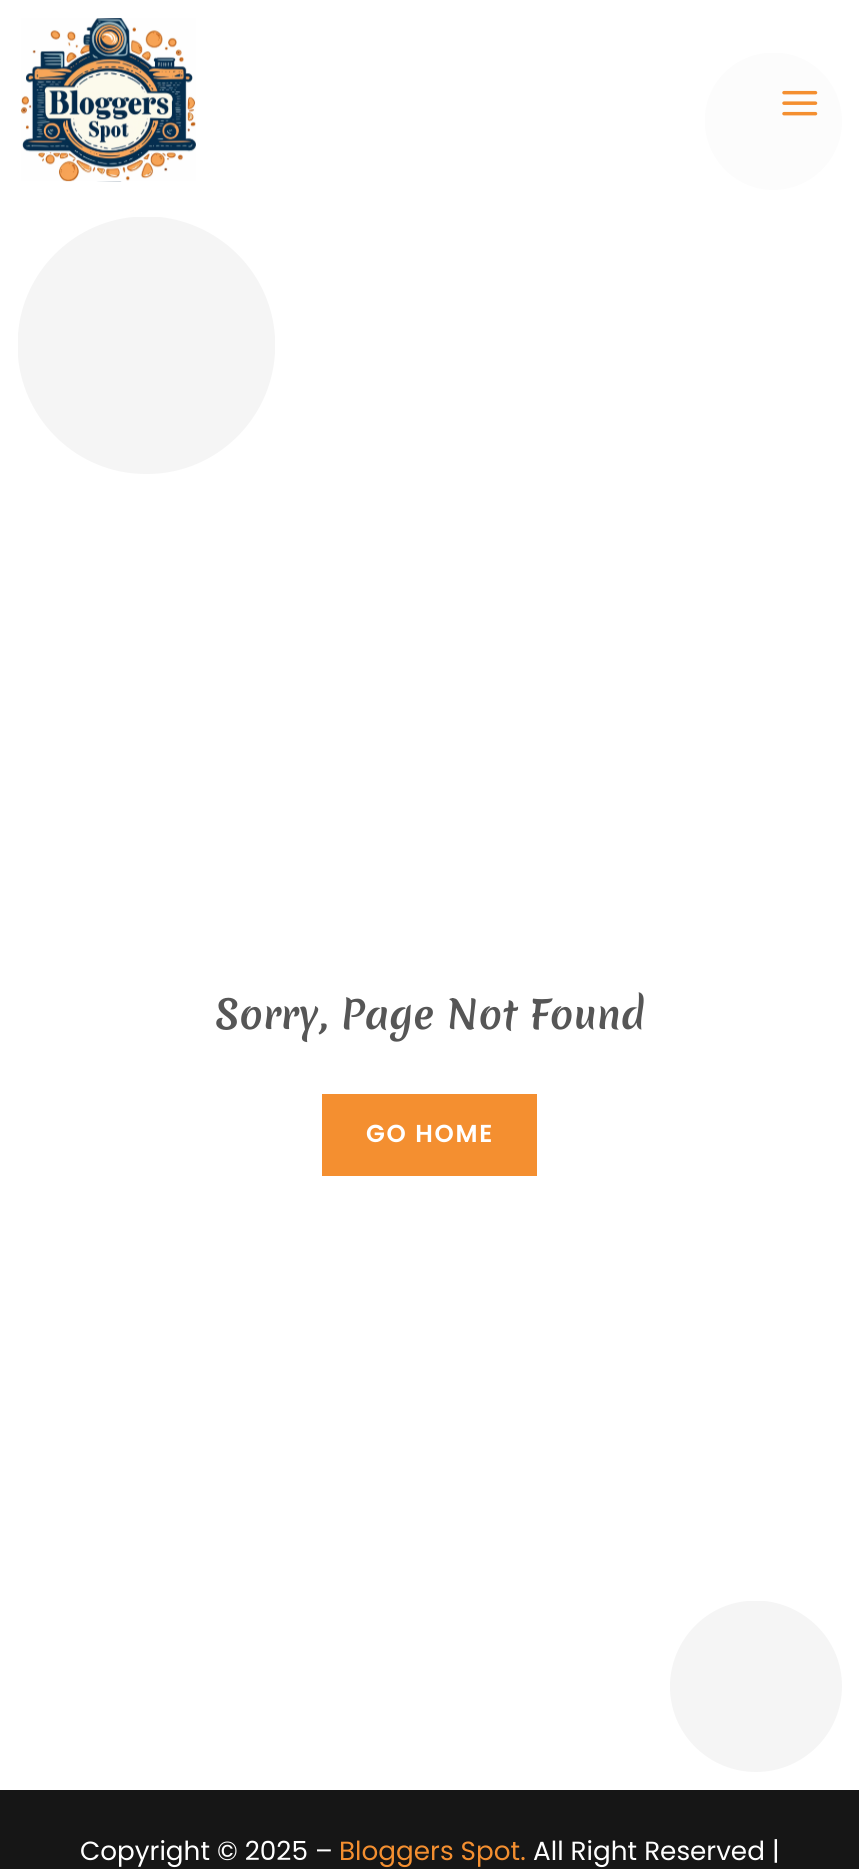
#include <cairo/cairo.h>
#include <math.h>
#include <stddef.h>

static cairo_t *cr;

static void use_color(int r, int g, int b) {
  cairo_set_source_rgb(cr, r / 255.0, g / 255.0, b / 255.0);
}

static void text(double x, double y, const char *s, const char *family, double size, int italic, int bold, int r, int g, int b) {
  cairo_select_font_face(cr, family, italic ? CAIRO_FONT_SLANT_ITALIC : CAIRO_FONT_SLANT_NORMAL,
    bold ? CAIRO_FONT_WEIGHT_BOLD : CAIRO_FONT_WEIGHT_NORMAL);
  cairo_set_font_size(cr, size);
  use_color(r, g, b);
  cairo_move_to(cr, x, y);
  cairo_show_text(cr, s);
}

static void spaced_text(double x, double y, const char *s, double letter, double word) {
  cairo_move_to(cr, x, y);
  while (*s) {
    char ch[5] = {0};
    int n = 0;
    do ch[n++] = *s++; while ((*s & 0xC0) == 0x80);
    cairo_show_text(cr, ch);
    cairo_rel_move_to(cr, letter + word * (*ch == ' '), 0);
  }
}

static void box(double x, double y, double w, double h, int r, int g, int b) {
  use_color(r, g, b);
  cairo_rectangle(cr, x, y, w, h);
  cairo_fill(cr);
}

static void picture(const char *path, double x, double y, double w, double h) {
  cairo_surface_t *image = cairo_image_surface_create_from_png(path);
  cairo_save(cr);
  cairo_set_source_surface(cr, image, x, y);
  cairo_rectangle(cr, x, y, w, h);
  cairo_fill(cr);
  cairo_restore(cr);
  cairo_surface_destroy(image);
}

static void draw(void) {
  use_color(255, 255, 255);
  cairo_paint(cr);
  picture("img_01.png", 21, 18, 175, 164);
  use_color(252, 252, 252);
  cairo_new_path(cr);
  cairo_move_to(cr, 705, 114);
  cairo_curve_to(cr, 708, 82, 733, 57, 765, 53);
  cairo_line_to(cr, 782, 53);
  cairo_curve_to(cr, 815, 57, 840, 84, 842, 118);
  cairo_line_to(cr, 842, 125);
  cairo_curve_to(cr, 840, 161, 810, 190, 773, 190);
  cairo_curve_to(cr, 738, 190, 709, 163, 705, 128);
  cairo_close_path(cr);
  cairo_fill(cr);
  picture("img_02.png", 782, 90, 36, 26);
  use_color(245, 245, 245);
  cairo_new_path(cr);
  cairo_move_to(cr, 18, 334);
  cairo_curve_to(cr, 23, 272, 72, 223, 133, 217);
  cairo_line_to(cr, 160, 217);
  cairo_curve_to(cr, 222, 224, 271, 274, 275, 337);
  cairo_line_to(cr, 275, 353);
  cairo_curve_to(cr, 271, 420, 216, 473, 149, 474);
  cairo_line_to(cr, 144, 474);
  cairo_curve_to(cr, 77, 473, 24, 421, 18, 357);
  cairo_close_path(cr);
  cairo_fill(cr);
  box(322, 1094, 215, 82, 244, 143, 48);
  use_color(245, 245, 245);
  cairo_new_path(cr);
  cairo_move_to(cr, 670, 1683);
  cairo_curve_to(cr, 672, 1640, 705, 1605, 747, 1601);
  cairo_line_to(cr, 765, 1601);
  cairo_curve_to(cr, 808, 1606, 842, 1642, 842, 1686);
  cairo_curve_to(cr, 842, 1734, 803, 1772, 756, 1772);
  cairo_curve_to(cr, 710, 1772, 672, 1736, 670, 1690);
  cairo_close_path(cr);
  cairo_fill(cr);
  box(0, 1790, 859, 79, 22, 22, 22);
  text(215, 1029, "Sorry, Page Not Found", "Merienda", 38.5, 0, 1, 86, 86, 86);
  cairo_select_font_face(cr, "Poppins SemiBold", CAIRO_FONT_SLANT_NORMAL, CAIRO_FONT_WEIGHT_NORMAL);
  cairo_set_font_size(cr, 24.5);
  use_color(255, 255, 255);
  spaced_text(366, 1142, "GO HOME", 1.75, 0);
  text(80, 1860, "Copyright © 2025 –", "Poppins", 26.25, 0, 0, 255, 255, 255);
  text(339, 1860, "Bloggers Spot.", "Poppins", 26.25, 0, 0, 244, 143, 48);
  text(533, 1860, "All Right Reserved |", "Poppins", 26.25, 0, 0, 255, 255, 255);
}

int main(void) {
  cairo_surface_t *surface = cairo_image_surface_create(CAIRO_FORMAT_RGB24, 859, 1869);
  cr = cairo_create(surface);
  cairo_font_options_t *options = cairo_font_options_create();
  cairo_font_options_set_hint_metrics(options, CAIRO_HINT_METRICS_OFF);
  cairo_font_options_set_hint_style(options, CAIRO_HINT_STYLE_NONE);
  cairo_set_font_options(cr, options);
  cairo_set_miter_limit(cr, 4);
  draw();
  cairo_surface_write_to_png(surface, "out.png");
  cairo_font_options_destroy(options);
  cairo_destroy(cr);
  cairo_surface_destroy(surface);
  return 0;
}
